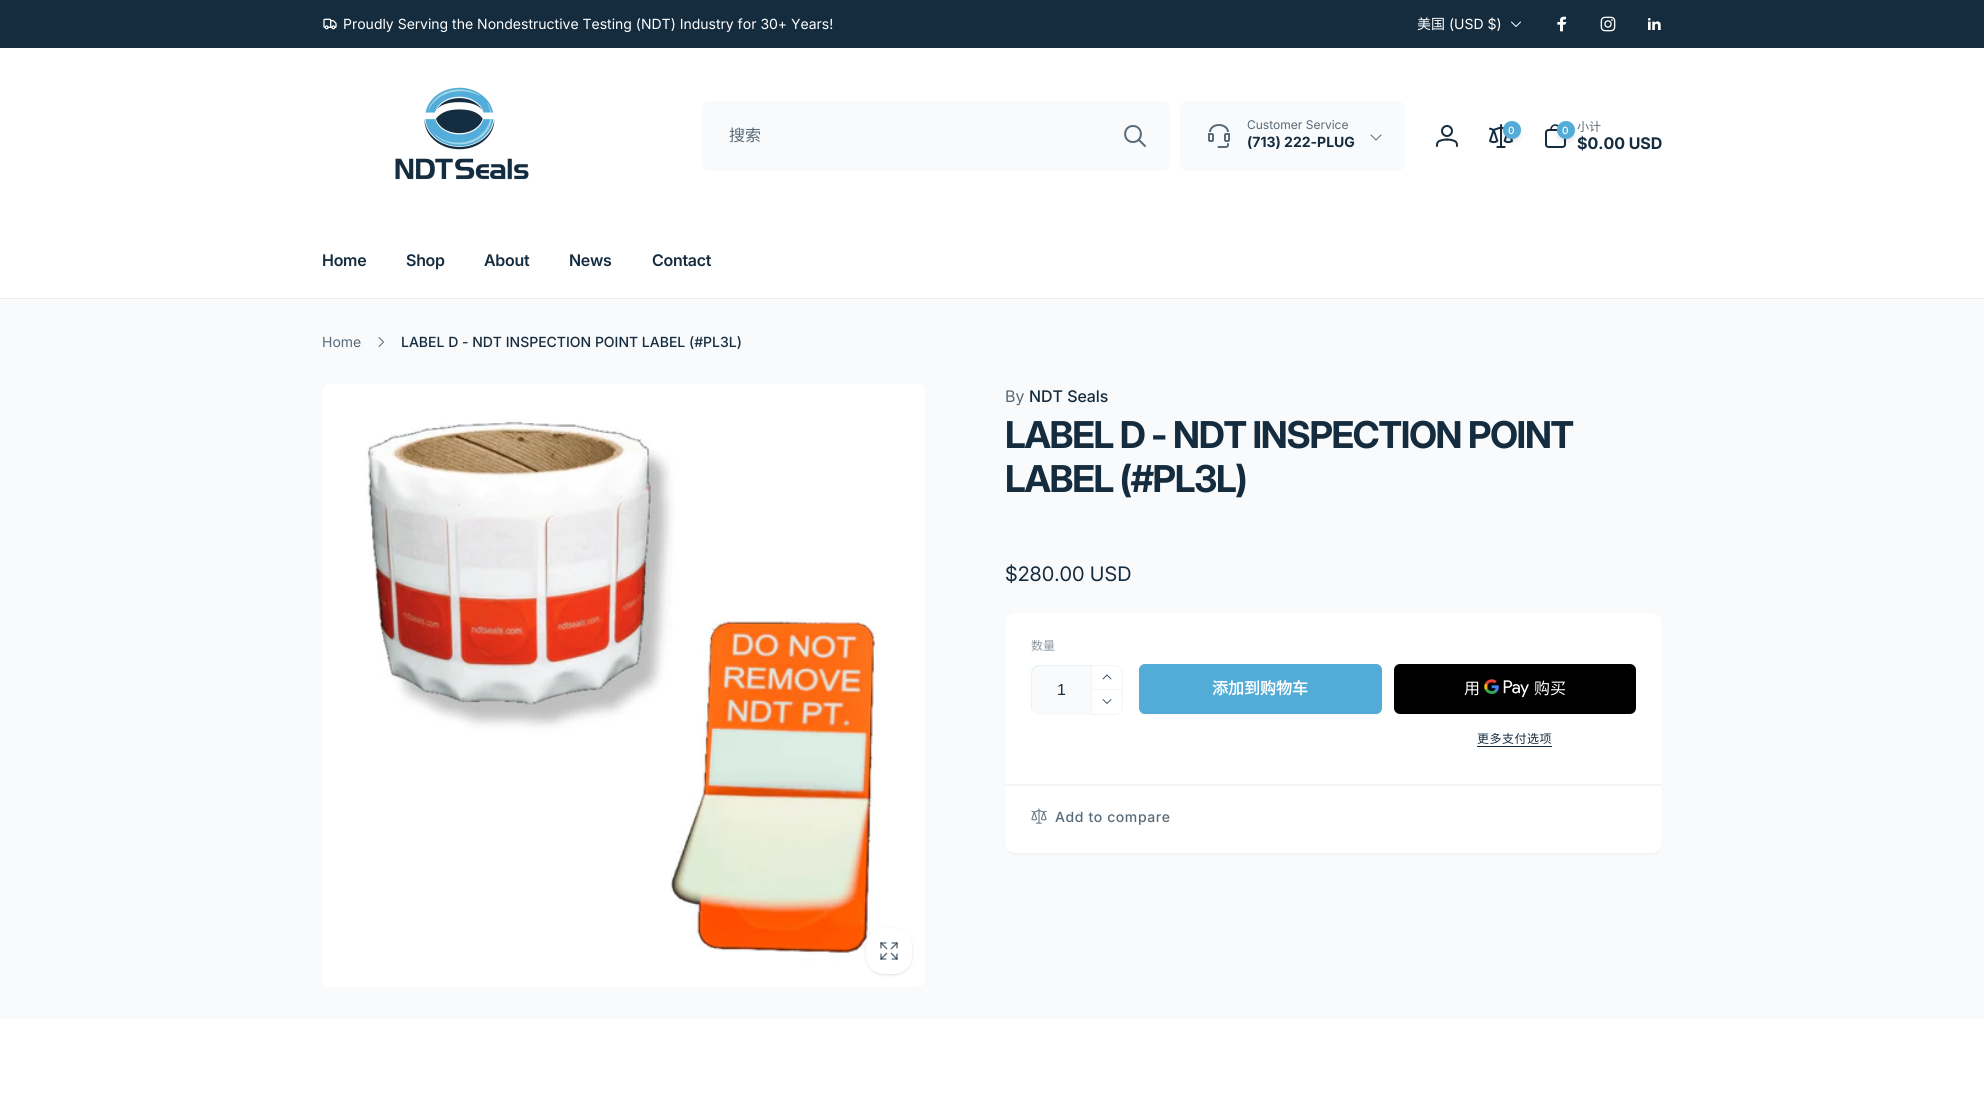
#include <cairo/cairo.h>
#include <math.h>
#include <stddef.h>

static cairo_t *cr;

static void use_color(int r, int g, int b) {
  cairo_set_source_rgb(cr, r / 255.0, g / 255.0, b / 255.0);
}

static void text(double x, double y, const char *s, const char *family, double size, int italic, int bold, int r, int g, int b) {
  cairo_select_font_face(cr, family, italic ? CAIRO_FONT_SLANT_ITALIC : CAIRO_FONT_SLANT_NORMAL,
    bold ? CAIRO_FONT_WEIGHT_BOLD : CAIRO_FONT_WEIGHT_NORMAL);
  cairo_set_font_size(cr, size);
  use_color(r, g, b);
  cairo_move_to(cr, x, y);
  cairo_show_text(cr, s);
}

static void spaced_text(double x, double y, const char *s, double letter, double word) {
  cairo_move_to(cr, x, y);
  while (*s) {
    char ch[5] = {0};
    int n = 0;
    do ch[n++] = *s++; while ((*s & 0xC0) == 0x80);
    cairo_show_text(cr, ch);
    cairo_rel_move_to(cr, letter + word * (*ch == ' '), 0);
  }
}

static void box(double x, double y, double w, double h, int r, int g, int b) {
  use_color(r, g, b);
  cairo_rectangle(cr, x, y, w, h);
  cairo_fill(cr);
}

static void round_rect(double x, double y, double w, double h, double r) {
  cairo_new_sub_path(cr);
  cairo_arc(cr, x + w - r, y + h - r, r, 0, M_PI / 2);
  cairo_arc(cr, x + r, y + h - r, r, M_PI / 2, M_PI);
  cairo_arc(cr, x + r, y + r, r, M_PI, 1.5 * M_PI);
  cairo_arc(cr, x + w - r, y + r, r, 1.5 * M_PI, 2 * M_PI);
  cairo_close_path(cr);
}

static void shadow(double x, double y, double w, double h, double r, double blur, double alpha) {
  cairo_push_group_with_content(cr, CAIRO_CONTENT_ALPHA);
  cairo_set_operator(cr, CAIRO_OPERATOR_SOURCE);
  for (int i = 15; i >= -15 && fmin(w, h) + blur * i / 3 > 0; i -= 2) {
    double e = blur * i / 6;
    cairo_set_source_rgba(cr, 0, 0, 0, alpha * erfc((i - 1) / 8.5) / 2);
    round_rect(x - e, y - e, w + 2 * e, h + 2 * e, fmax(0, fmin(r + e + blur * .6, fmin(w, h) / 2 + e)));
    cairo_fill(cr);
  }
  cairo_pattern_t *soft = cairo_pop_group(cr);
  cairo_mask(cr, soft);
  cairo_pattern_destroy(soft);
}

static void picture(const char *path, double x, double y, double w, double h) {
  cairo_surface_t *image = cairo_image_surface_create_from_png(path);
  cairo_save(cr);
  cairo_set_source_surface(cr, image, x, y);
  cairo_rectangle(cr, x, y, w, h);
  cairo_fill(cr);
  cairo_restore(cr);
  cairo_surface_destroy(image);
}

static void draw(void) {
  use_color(255, 255, 255);
  cairo_paint(cr);
  box(0, 0, 1984, 48, 21, 44, 63);
  picture("img_01.png", 323, 18, 14, 12);
  cairo_new_path(cr);
  cairo_move_to(cr, 1520.5, 22);
  cairo_line_to(cr, 1516, 26.5);
  cairo_line_to(cr, 1511.5, 22);
  use_color(255, 255, 255);
  cairo_set_line_width(cr, 1);
  cairo_set_line_cap(cr, CAIRO_LINE_CAP_ROUND);
  cairo_set_line_join(cr, CAIRO_LINE_JOIN_ROUND);
  cairo_stroke(cr);
  picture("img_02.png", 1557, 16, 10, 16);
  picture("img_03.png", 1600, 16, 16, 16);
  picture("img_04.png", 1648, 18, 13, 12);
  box(0, 298, 1984, 1, 236, 238, 240);
  picture("img_05.png", 395, 87, 134, 93);
  use_color(248, 250, 252);
  round_rect(702, 101, 468, 70, 8);
  cairo_fill(cr);
  cairo_new_path(cr);
  cairo_move_to(cr, 1145, 146);
  cairo_line_to(cr, 1138.5, 139.5);
  cairo_move_to(cr, 1133, 142);
  cairo_curve_to(cr, 1143.5, 142, 1143.5, 126, 1133, 126);
  cairo_curve_to(cr, 1122.5, 126, 1122.5, 142, 1133, 142);
  cairo_close_path(cr);
  use_color(89, 106, 120);
  cairo_set_line_width(cr, 2);
  cairo_stroke(cr);
  use_color(248, 250, 252);
  round_rect(1180, 101, 225, 70, 8);
  cairo_fill(cr);
  picture("img_06.png", 1208, 124, 22, 24);
  cairo_new_path(cr);
  cairo_move_to(cr, 1381, 135);
  cairo_line_to(cr, 1376, 140);
  cairo_line_to(cr, 1371, 135);
  use_color(89, 106, 120);
  cairo_set_line_width(cr, 1);
  cairo_stroke(cr);
  picture("img_07.png", 1436, 125, 22, 22);
  picture("img_08.png", 1489, 124, 24, 24);
  use_color(21, 44, 63);
  shadow(1504, 124, 16, 16, 8, 2, 0.06);
  shadow(1504, 126, 16, 16, 8, 3, 0.1);
  use_color(83, 172, 215);
  cairo_arc(cr, 1512, 130, 9, 0, 2 * M_PI);
  cairo_fill(cr);
  picture("img_09.png", 1545, 124, 21, 24);
  use_color(21, 44, 63);
  shadow(1558, 124, 16, 16, 8, 2, 0.06);
  shadow(1558, 126, 16, 16, 8, 3, 0.1);
  use_color(83, 172, 215);
  cairo_arc(cr, 1566, 130, 9, 0, 2 * M_PI);
  cairo_fill(cr);
  box(0, 299, 1984, 720, 248, 250, 252);
  cairo_new_path(cr);
  cairo_move_to(cr, 379, 337.5);
  cairo_line_to(cr, 383.5, 342);
  cairo_line_to(cr, 379, 346.5);
  use_color(89, 106, 120);
  cairo_stroke(cr);
  picture("img_10.png", 322, 384, 603, 603);
  use_color(21, 44, 63);
  shadow(866, 929, 46, 46, 18, 1, 0.06);
  shadow(866, 929, 46, 46, 18, 1.5, 0.1);
  use_color(255, 255, 255);
  round_rect(866, 928, 46, 46, 18);
  cairo_fill(cr);
  picture("img_11.png", 880, 942, 18, 18);
  use_color(21, 44, 63);
  shadow(1005, 614, 657, 240, 10, 1, 0.05);
  use_color(255, 255, 255);
  round_rect(1005, 613, 657, 240, 10);
  cairo_fill(cr);
  use_color(248, 250, 252);
  cairo_new_path(cr);
  cairo_move_to(cr, 1039, 665);
  cairo_line_to(cr, 1091, 665);
  cairo_line_to(cr, 1091, 715);
  cairo_line_to(cr, 1039, 715);
  cairo_curve_to(cr, 1034.5, 715, 1031, 711.5, 1031, 707);
  cairo_line_to(cr, 1031, 673);
  cairo_curve_to(cr, 1031, 668.5, 1034.5, 665, 1039, 665);
  cairo_close_path(cr);
  cairo_fill(cr);
  use_color(232, 242, 248);
  cairo_new_path(cr);
  cairo_move_to(cr, 1040, 666);
  cairo_line_to(cr, 1091, 666);
  cairo_line_to(cr, 1091, 665);
  cairo_line_to(cr, 1039, 665);
  cairo_curve_to(cr, 1035, 665, 1031, 669, 1031, 673);
  cairo_line_to(cr, 1031, 707);
  cairo_curve_to(cr, 1031, 710, 1033, 712, 1035, 714);
  cairo_curve_to(cr, 1033, 712, 1032, 710, 1032, 708);
  cairo_line_to(cr, 1032, 674);
  cairo_curve_to(cr, 1032, 670, 1036, 666, 1040, 666);
  cairo_close_path(cr);
  cairo_fill(cr);
  cairo_new_path(cr);
  cairo_move_to(cr, 1091.5, 665.5);
  cairo_line_to(cr, 1115, 665.5);
  cairo_curve_to(cr, 1119, 665.5, 1122.5, 669, 1122.5, 673);
  cairo_line_to(cr, 1122.5, 689.5);
  cairo_line_to(cr, 1091.5, 689.5);
  cairo_close_path(cr);
  use_color(243, 244, 245);
  cairo_set_line_cap(cr, CAIRO_LINE_CAP_BUTT);
  cairo_set_line_join(cr, CAIRO_LINE_JOIN_MITER);
  cairo_stroke(cr);
  cairo_set_fill_rule(cr, CAIRO_FILL_RULE_EVEN_ODD);
  cairo_new_path(cr);
  cairo_move_to(cr, 1091, 690);
  cairo_line_to(cr, 1123, 690);
  cairo_line_to(cr, 1123, 707);
  cairo_curve_to(cr, 1123, 711.5, 1119.5, 715, 1115, 715);
  cairo_line_to(cr, 1091, 715);
  cairo_close_path(cr);
  cairo_move_to(cr, 1092, 690);
  cairo_line_to(cr, 1122, 690);
  cairo_line_to(cr, 1122, 707);
  cairo_curve_to(cr, 1122, 711, 1119, 714, 1115, 714);
  cairo_line_to(cr, 1092, 714);
  cairo_close_path(cr);
  cairo_fill(cr);
  cairo_new_path(cr);
  cairo_move_to(cr, 1111, 679);
  cairo_line_to(cr, 1107, 675);
  cairo_line_to(cr, 1103, 679);
  cairo_move_to(cr, 1111, 699.5);
  cairo_line_to(cr, 1107, 703.5);
  cairo_line_to(cr, 1103, 699.5);
  use_color(21, 44, 63);
  cairo_set_line_width(cr, 0.8);
  cairo_set_line_cap(cr, CAIRO_LINE_CAP_ROUND);
  cairo_set_line_join(cr, CAIRO_LINE_JOIN_ROUND);
  cairo_stroke(cr);
  use_color(21, 44, 63);
  shadow(1139, 665, 243, 50, 6, 1, 0.05);
  use_color(83, 172, 215);
  round_rect(1139.5, 664.5, 242, 49, 5.5);
  cairo_fill_preserve(cr);
  cairo_set_line_width(cr, 1);
  cairo_set_line_cap(cr, CAIRO_LINE_CAP_BUTT);
  cairo_set_line_join(cr, CAIRO_LINE_JOIN_MITER);
  cairo_stroke(cr);
  use_color(0, 0, 0);
  round_rect(1394, 664, 242, 50, 6);
  cairo_fill(cr);
  picture("img_12.png", 1484, 679, 45, 18);
  box(1477, 746, 75, 1, 21, 44, 63);
  box(1005, 784, 657, 2, 243, 244, 245);
  picture("img_13.png", 1031, 808, 16, 16);
  text(343, 29, "Proudly Serving the Nondestructive Testing (NDT) Industry for 30+ Years!", "Inter", 14, 0, 0, 255, 255, 255);
  text(1417, 29, "美国", "Noto Sans CJK SC", 14, 0, 0, 255, 255, 255);
  text(1449, 29, "(USD $)", "Inter", 14, 0, 0, 255, 255, 255);
  text(729, 141, "搜索", "Noto Sans CJK SC", 16, 0, 0, 89, 106, 120);
  text(1247, 129, "Customer Service", "Inter", 12, 0, 0, 89, 106, 120);
  text(1247, 147, "(713) 222-PLUG", "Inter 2", 14, 0, 1, 21, 44, 63);
  text(1508, 134, "0", "Inter Medium", 10, 0, 0, 255, 255, 255);
  text(1562, 134, "0", "Inter Medium", 10, 0, 0, 255, 255, 255);
  text(1577, 131, "小计", "Noto Sans CJK SC", 12, 0, 0, 89, 106, 120);
  text(1577, 149, "$0.00 USD", "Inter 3", 16, 0, 1, 21, 44, 63);
  cairo_select_font_face(cr, "Inter SemiBold", CAIRO_FONT_SLANT_NORMAL, CAIRO_FONT_WEIGHT_NORMAL);
  spaced_text(322, 266, "Home", -0.25, 0);
  spaced_text(406, 266, "Shop", -0.25, 0);
  spaced_text(484, 266, "About", -0.25, 0);
  spaced_text(569, 266, "News", -0.25, 0);
  spaced_text(652, 266, "Contact", -0.25, 0);
  text(322, 347, "Home", "Inter", 14, 0, 0, 89, 106, 120);
  text(401, 347, "LABEL D - NDT INSPECTION POINT LABEL (#PL3L)", "Inter Medium", 14, 0, 0, 21, 44, 63);
  text(1005, 402, "By", "Inter 2", 16, 0, 0, 89, 106, 120);
  text(1029, 402, "NDT Seals", "Inter 2 Medium", 16, 0, 0, 21, 44, 63);
  cairo_select_font_face(cr, "Inter", CAIRO_FONT_SLANT_NORMAL, CAIRO_FONT_WEIGHT_BOLD);
  cairo_set_font_size(cr, 37);
  spaced_text(1005, 448, "LABEL D - NDT INSPECTION POINT", -1.2, 0);
  spaced_text(1005, 492, "LABEL (#PL3L)", -1.2, 0);
  text(1005, 581, "$280.00 USD", "Inter 3", 20, 0, 0, 21, 44, 63);
  text(1031, 650, "数量", "Noto Sans CJK SC", 12, 0, 0, 138, 150, 159);
  text(1057, 695, "1", "Liberation Sans", 16, 0, 0, 21, 44, 63);
  text(1212, 694, "添加到购物车", "Noto Sans CJK SC", 16, 0, 1, 255, 255, 255);
  text(1464, 694, "用", "Noto Sans CJK SC", 16, 0, 0, 255, 255, 255);
  text(1534, 694, "购买", "Noto Sans CJK SC", 16, 0, 0, 255, 255, 255);
  cairo_set_font_size(cr, 12);
  use_color(21, 44, 63);
  spaced_text(1477, 743, "更多支付选项", 0.5, 0);
  cairo_select_font_face(cr, "Inter Medium", CAIRO_FONT_SLANT_NORMAL, CAIRO_FONT_WEIGHT_NORMAL);
  cairo_set_font_size(cr, 14);
  use_color(89, 106, 120);
  spaced_text(1055, 822, "Add to compare", 0.6, 0);
}

int main(void) {
  cairo_surface_t *surface = cairo_image_surface_create(CAIRO_FORMAT_RGB24, 1984, 1093);
  cr = cairo_create(surface);
  cairo_font_options_t *options = cairo_font_options_create();
  cairo_font_options_set_hint_metrics(options, CAIRO_HINT_METRICS_OFF);
  cairo_font_options_set_hint_style(options, CAIRO_HINT_STYLE_NONE);
  cairo_set_font_options(cr, options);
  cairo_set_miter_limit(cr, 4);
  draw();
  cairo_surface_write_to_png(surface, "out.png");
  cairo_font_options_destroy(options);
  cairo_destroy(cr);
  cairo_surface_destroy(surface);
  return 0;
}
